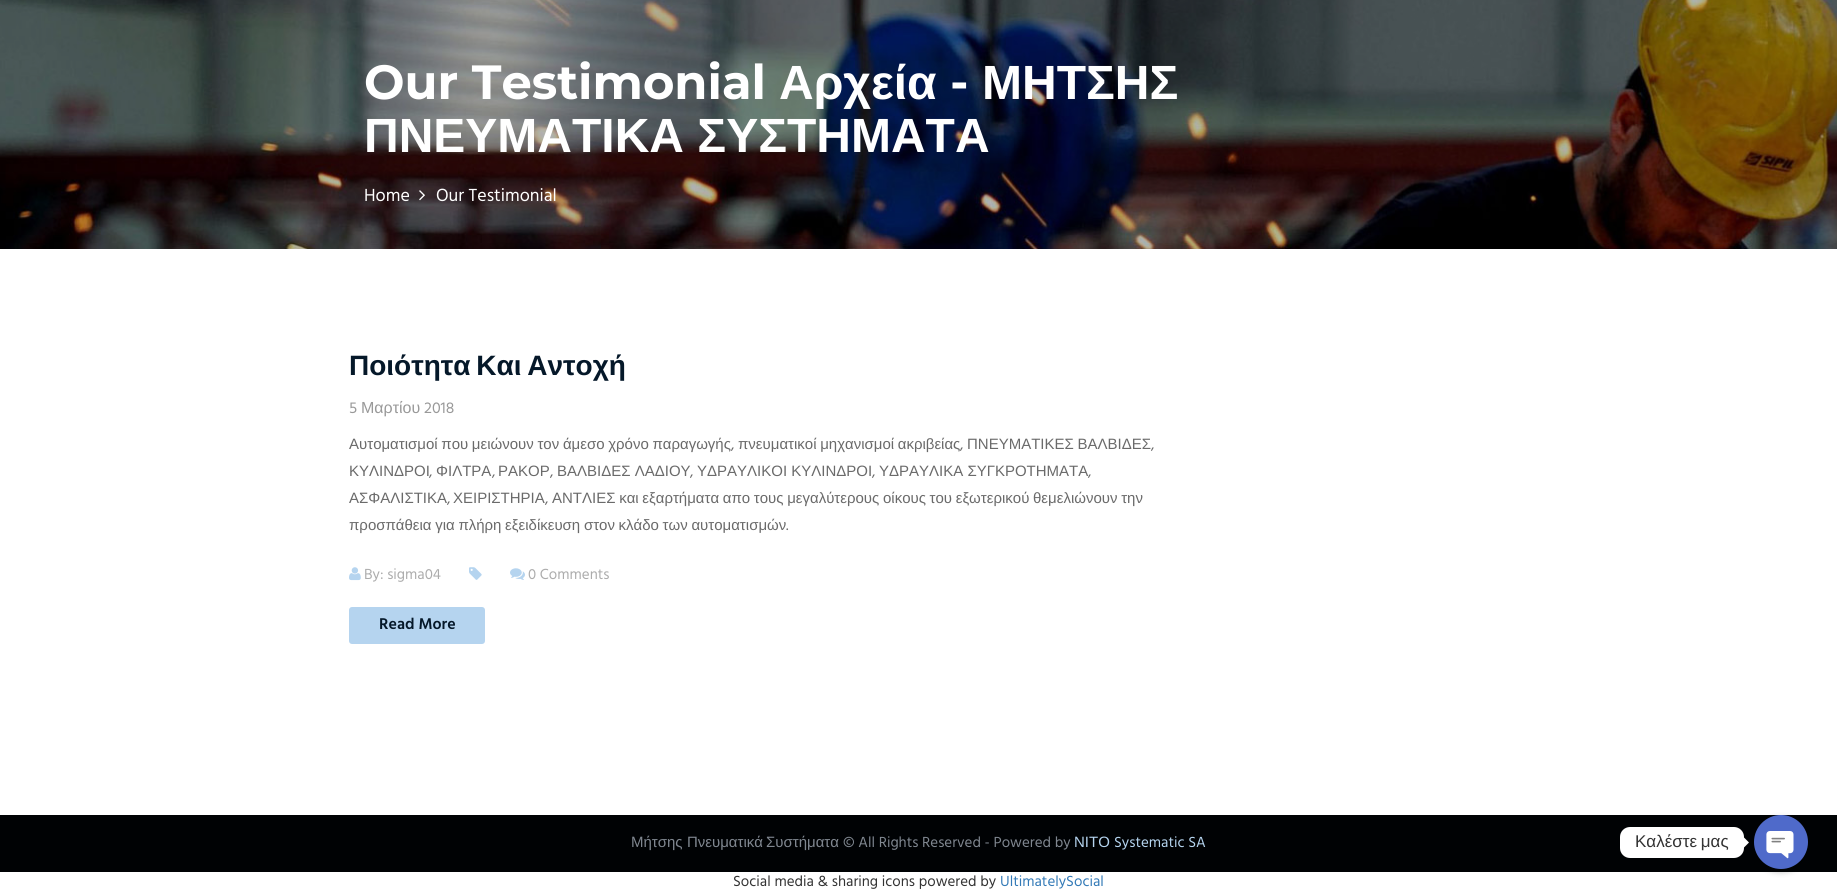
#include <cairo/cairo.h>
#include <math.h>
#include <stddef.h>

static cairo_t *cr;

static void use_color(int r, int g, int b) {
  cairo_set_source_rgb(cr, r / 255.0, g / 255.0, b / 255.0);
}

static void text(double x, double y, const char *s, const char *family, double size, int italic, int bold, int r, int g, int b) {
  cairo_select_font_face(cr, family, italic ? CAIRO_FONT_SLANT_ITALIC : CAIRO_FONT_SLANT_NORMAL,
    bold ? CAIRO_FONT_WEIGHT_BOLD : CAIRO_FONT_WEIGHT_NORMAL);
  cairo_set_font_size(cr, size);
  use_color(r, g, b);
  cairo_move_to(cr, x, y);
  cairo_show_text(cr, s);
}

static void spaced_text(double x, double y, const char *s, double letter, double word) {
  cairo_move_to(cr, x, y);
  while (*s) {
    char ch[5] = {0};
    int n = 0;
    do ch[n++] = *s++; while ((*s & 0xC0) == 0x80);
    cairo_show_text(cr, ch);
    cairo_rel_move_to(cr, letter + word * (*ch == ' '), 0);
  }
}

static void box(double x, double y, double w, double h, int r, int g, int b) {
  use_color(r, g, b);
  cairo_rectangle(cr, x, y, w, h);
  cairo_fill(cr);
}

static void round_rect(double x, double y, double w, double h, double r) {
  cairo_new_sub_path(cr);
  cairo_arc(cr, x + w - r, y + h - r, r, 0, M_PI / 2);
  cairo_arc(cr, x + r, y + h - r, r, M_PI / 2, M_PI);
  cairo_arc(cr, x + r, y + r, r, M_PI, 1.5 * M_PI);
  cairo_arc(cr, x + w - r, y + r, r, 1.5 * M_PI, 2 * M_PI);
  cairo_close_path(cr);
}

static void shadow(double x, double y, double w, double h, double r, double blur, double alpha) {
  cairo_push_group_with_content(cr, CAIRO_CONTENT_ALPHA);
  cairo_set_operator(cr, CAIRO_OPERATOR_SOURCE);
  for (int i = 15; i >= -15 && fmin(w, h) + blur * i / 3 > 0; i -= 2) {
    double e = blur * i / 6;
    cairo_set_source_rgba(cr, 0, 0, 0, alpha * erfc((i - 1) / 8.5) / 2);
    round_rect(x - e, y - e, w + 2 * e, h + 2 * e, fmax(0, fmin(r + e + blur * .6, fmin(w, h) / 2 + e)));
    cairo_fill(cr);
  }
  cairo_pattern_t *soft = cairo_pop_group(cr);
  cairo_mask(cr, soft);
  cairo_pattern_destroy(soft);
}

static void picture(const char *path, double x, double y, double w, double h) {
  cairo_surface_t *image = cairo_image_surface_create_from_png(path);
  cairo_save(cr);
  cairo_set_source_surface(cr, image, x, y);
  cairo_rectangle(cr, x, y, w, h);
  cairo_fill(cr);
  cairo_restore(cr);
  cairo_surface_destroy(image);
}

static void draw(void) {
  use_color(255, 255, 255);
  cairo_paint(cr);
  picture("img_01.png", 0, 0, 1837, 249);
  picture("img_02.png", 419, 190, 6, 11);
  picture("img_03.png", 349, 567, 12, 14);
  picture("img_04.png", 469, 567, 13, 13);
  picture("img_05.png", 510, 568, 15, 12);
  use_color(181, 212, 239);
  round_rect(350, 608, 134, 35, 2);
  cairo_fill_preserve(cr);
  cairo_stroke(cr);
  box(0, 815, 1837, 57, 0, 2, 4);
  use_color(255, 255, 255);
  round_rect(1620, 827, 124, 31, 10);
  cairo_fill(cr);
  cairo_new_path(cr);
  cairo_move_to(cr, 1744, 847.5);
  cairo_line_to(cr, 1744, 837.5);
  cairo_line_to(cr, 1749, 842.5);
  cairo_close_path(cr);
  cairo_fill(cr);
  use_color(0, 0, 0);
  shadow(1754, 818, 54, 54, 27, 3, 0.25);
  picture("img_06.png", 1754, 815, 54, 54);
  text(364, 99, "Our Testimonial", "Montserrat", 48, 0, 1, 255, 255, 255);
  text(779, 99, "Αρχεία", "Liberation Sans", 48, 0, 1, 255, 255, 255);
  text(950, 99, "-", "Montserrat", 48, 0, 1, 255, 255, 255);
  text(982, 99, "ΜΗΤΣΗΣ", "Liberation Sans", 48, 0, 1, 255, 255, 255);
  text(364, 152, "ΠΝΕΥΜΑΤΙΚΑ ΣΥΣΤΗΜΑΤΑ", "Liberation Sans", 48, 0, 1, 255, 255, 255);
  text(364, 201, "Home", "Hind", 18, 0, 0, 255, 255, 255);
  text(436, 201, "Our Testimonial", "Hind", 18, 0, 0, 255, 255, 255);
  cairo_select_font_face(cr, "Liberation Sans", CAIRO_FONT_SLANT_NORMAL, CAIRO_FONT_WEIGHT_BOLD);
  cairo_set_font_size(cr, 28);
  use_color(5, 24, 41);
  spaced_text(349, 375, "Ποιότητα Και Αντοχή", 0, -2);
  text(349, 413, "5", "Hind", 16, 0, 0, 153, 153, 153);
  text(361, 413, "Μαρτίου", "Liberation Sans", 16, 0, 0, 153, 153, 153);
  text(424, 413, "2018", "Hind", 16, 0, 0, 153, 153, 153);
  cairo_select_font_face(cr, "Liberation Sans", CAIRO_FONT_SLANT_NORMAL, CAIRO_FONT_WEIGHT_NORMAL);
  cairo_set_font_size(cr, 15);
  use_color(106, 106, 106);
  spaced_text(349, 449, "Αυτοματισμοί που μειώνουν τον άμεσο χρόνο παραγωγής", 0, -0.5);
  text(731, 449, ",", "Hind", 15, 0, 0, 106, 106, 106);
  cairo_select_font_face(cr, "Liberation Sans", CAIRO_FONT_SLANT_NORMAL, CAIRO_FONT_WEIGHT_NORMAL);
  spaced_text(738, 449, "πνευματικοί μηχανισμοί ακριβείας", 0, -0.5);
  text(960, 449, ",", "Hind", 15, 0, 0, 106, 106, 106);
  cairo_select_font_face(cr, "Liberation Sans", CAIRO_FONT_SLANT_NORMAL, CAIRO_FONT_WEIGHT_NORMAL);
  spaced_text(967, 449, "ΠΝΕΥΜΑΤΙΚΕΣ ΒΑΛΒΙΔΕΣ", 0, -0.5);
  text(1151, 449, ",", "Hind", 15, 0, 0, 106, 106, 106);
  text(349, 476, "ΚΥΛΙΝΔΡΟΙ", "Liberation Sans", 15, 0, 0, 106, 106, 106);
  text(429, 476, ",", "Hind", 15, 0, 0, 106, 106, 106);
  text(436, 476, "ΦΙΛΤΡΑ", "Liberation Sans", 15, 0, 0, 106, 106, 106);
  text(492, 476, ",", "Hind", 15, 0, 0, 106, 106, 106);
  text(498, 476, "ΡΑΚΟΡ", "Liberation Sans", 15, 0, 0, 106, 106, 106);
  text(550, 476, ",", "Hind", 15, 0, 0, 106, 106, 106);
  text(557, 476, "ΒΑΛΒΙΔΕΣ ΛΑΔΙΟΥ", "Liberation Sans", 15, 0, 0, 106, 106, 106);
  text(690, 476, ",", "Hind", 15, 0, 0, 106, 106, 106);
  text(697, 476, "ΥΔΡΑΥΛΙΚΟΙ ΚΥΛΙΝΔΡΟΙ", "Liberation Sans", 15, 0, 0, 106, 106, 106);
  text(872, 476, ",", "Hind", 15, 0, 0, 106, 106, 106);
  text(879, 476, "ΥΔΡΑΥΛΙΚΑ ΣΥΓΚΡΟΤΗΜΑΤΑ", "Liberation Sans", 15, 0, 0, 106, 106, 106);
  text(1088, 476, ",", "Hind", 15, 0, 0, 106, 106, 106);
  text(349, 503, "ΑΣΦΑΛΙΣΤΙΚΑ", "Liberation Sans", 15, 0, 0, 106, 106, 106);
  text(447, 503, ",", "Hind", 15, 0, 0, 106, 106, 106);
  text(453, 503, "ΧΕΙΡΙΣΤΗΡΙΑ", "Liberation Sans", 15, 0, 0, 106, 106, 106);
  text(545, 503, ",", "Hind", 15, 0, 0, 106, 106, 106);
  cairo_select_font_face(cr, "Liberation Sans", CAIRO_FONT_SLANT_NORMAL, CAIRO_FONT_WEIGHT_NORMAL);
  spaced_text(552, 503, "ΑΝΤΛΙΕΣ και εξαρτήματα απο τους μεγαλύτερους οίκους του εξωτερικού θεμελιώνουν την", 0, -0.5);
  spaced_text(349, 530, "προσπάθεια για πλήρη εξειδίκευση στον κλάδο των αυτοματισμών", 0, -0.5);
  text(786, 530, ".", "Hind", 15, 0, 0, 106, 106, 106);
  text(364, 579, "By: sigma04", "Hind", 15, 0, 0, 172, 172, 172);
  text(528, 579, "0 Comments", "Hind", 15, 0, 0, 172, 172, 172);
  text(379, 629, "Read More", "Hind SemiBold", 16, 0, 0, 5, 24, 41);
  text(631, 847, "Μήτσης", "Liberation Sans", 15, 0, 0, 128, 135, 144);
  text(687, 847, "Πνευματικά", "Liberation Sans", 15, 0, 0, 128, 135, 144);
  text(766, 847, "Συστήματα", "Liberation Sans", 15, 0, 0, 128, 135, 144);
  text(843, 847, "© All Rights Reserved - Powered by", "Hind", 15, 0, 0, 128, 135, 144);
  text(1074, 847, "ΝΙΤΟ", "Liberation Sans", 15, 0, 0, 181, 212, 239);
  text(1114, 847, "Systematic SA", "Hind", 15, 0, 0, 181, 212, 239);
  cairo_select_font_face(cr, "Liberation Sans", CAIRO_FONT_SLANT_NORMAL, CAIRO_FONT_WEIGHT_NORMAL);
  cairo_set_font_size(cr, 17);
  use_color(51, 51, 51);
  spaced_text(1635, 847, "Καλέστε μας", 0, -1);
  text(733, 886, "Social media & sharing icons powered by", "Hind", 15, 0, 0, 51, 51, 51);
  text(1000, 886, "UltimatelySocial", "Hind", 15, 0, 0, 51, 122, 183);
}

int main(void) {
  cairo_surface_t *surface = cairo_image_surface_create(CAIRO_FORMAT_RGB24, 1837, 894);
  cr = cairo_create(surface);
  cairo_font_options_t *options = cairo_font_options_create();
  cairo_font_options_set_hint_metrics(options, CAIRO_HINT_METRICS_OFF);
  cairo_font_options_set_hint_style(options, CAIRO_HINT_STYLE_NONE);
  cairo_set_font_options(cr, options);
  cairo_set_miter_limit(cr, 4);
  draw();
  cairo_surface_write_to_png(surface, "out.png");
  cairo_font_options_destroy(options);
  cairo_destroy(cr);
  cairo_surface_destroy(surface);
  return 0;
}
